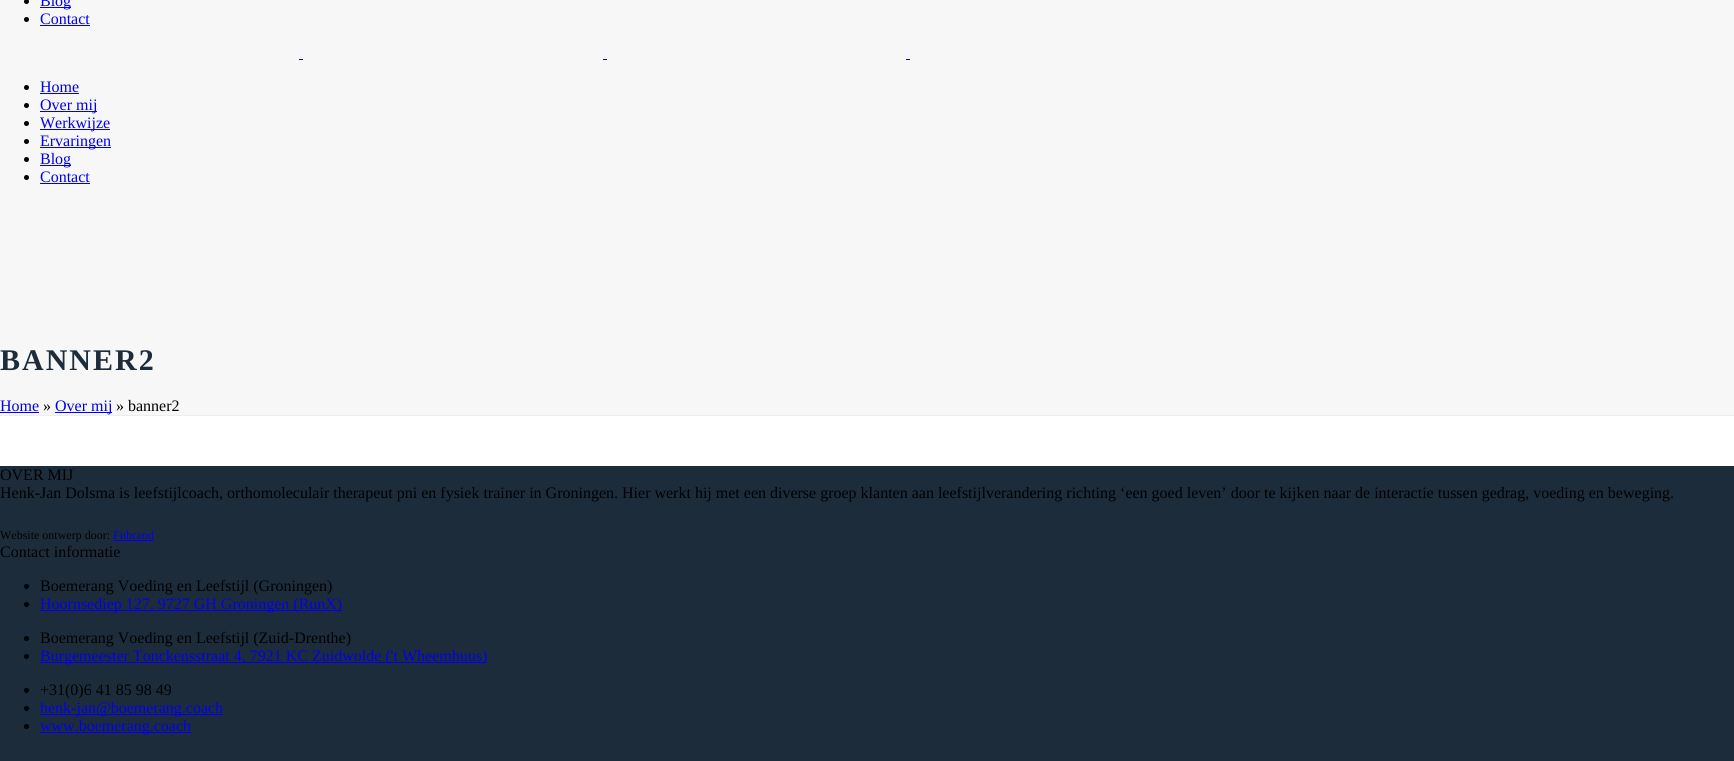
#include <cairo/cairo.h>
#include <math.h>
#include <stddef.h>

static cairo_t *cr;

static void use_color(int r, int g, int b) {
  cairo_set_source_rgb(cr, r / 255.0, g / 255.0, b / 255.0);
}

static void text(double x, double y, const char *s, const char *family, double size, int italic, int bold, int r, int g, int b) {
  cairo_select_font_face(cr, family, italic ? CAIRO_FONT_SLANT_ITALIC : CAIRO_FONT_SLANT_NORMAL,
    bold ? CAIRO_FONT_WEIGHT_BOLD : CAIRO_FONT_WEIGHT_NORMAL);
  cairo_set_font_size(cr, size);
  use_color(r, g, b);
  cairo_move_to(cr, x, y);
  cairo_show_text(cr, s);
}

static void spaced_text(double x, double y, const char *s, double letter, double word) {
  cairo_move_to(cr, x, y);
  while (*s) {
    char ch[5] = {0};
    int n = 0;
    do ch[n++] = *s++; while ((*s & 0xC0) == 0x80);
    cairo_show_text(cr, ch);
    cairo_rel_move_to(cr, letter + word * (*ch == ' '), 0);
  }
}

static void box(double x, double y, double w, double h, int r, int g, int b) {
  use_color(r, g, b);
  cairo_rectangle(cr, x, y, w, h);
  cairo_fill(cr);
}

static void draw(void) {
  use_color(255, 255, 255);
  cairo_paint(cr);
  box(0, 0, 1734, 415, 247, 247, 247);
  box(0, 415, 1734, 1, 237, 237, 237);
  use_color(0, 0, 0);
  cairo_arc(cr, 26.5, 1.5, 2.5, 0, 2 * M_PI);
  cairo_fill(cr);
  box(40, 7, 31, 1, 0, 0, 238);
  use_color(0, 0, 0);
  cairo_arc(cr, 26.5, 19.5, 2.5, 0, 2 * M_PI);
  cairo_fill(cr);
  box(40, 25, 50, 1, 0, 0, 238);
  box(299, 59, 4, 1, 0, 0, 238);
  box(603, 59, 4, 1, 0, 0, 238);
  box(906, 59, 4, 1, 0, 0, 238);
  use_color(0, 0, 0);
  cairo_arc(cr, 26.5, 87.5, 2.5, 0, 2 * M_PI);
  cairo_fill(cr);
  box(40, 93, 39, 1, 0, 0, 238);
  use_color(0, 0, 0);
  cairo_arc(cr, 26.5, 105.5, 2.5, 0, 2 * M_PI);
  cairo_fill(cr);
  box(40, 111, 57, 1, 0, 0, 238);
  use_color(0, 0, 0);
  cairo_arc(cr, 26.5, 123.5, 2.5, 0, 2 * M_PI);
  cairo_fill(cr);
  box(40, 129, 70, 1, 0, 0, 238);
  use_color(0, 0, 0);
  cairo_arc(cr, 26.5, 141.5, 2.5, 0, 2 * M_PI);
  cairo_fill(cr);
  box(40, 147, 71, 1, 0, 0, 238);
  use_color(0, 0, 0);
  cairo_arc(cr, 26.5, 159.5, 2.5, 0, 2 * M_PI);
  cairo_fill(cr);
  box(40, 165, 31, 1, 0, 0, 238);
  use_color(0, 0, 0);
  cairo_arc(cr, 26.5, 177.5, 2.5, 0, 2 * M_PI);
  cairo_fill(cr);
  box(40, 183, 50, 1, 0, 0, 238);
  box(0, 412, 39, 1, 0, 0, 238);
  box(55, 412, 57, 1, 0, 0, 238);
  box(0, 466, 1734, 295, 29, 44, 59);
  box(113, 540, 41, 1, 0, 0, 238);
  use_color(0, 0, 0);
  cairo_arc(cr, 26.5, 586.5, 2.5, 0, 2 * M_PI);
  cairo_fill(cr);
  cairo_arc(cr, 26.5, 604.5, 2.5, 0, 2 * M_PI);
  cairo_fill(cr);
  box(40, 610, 302, 1, 0, 0, 238);
  use_color(0, 0, 0);
  cairo_arc(cr, 26.5, 638.5, 2.5, 0, 2 * M_PI);
  cairo_fill(cr);
  cairo_arc(cr, 26.5, 656.5, 2.5, 0, 2 * M_PI);
  cairo_fill(cr);
  box(40, 662, 447, 1, 0, 0, 238);
  use_color(0, 0, 0);
  cairo_arc(cr, 26.5, 690.5, 2.5, 0, 2 * M_PI);
  cairo_fill(cr);
  cairo_arc(cr, 26.5, 708.5, 2.5, 0, 2 * M_PI);
  cairo_fill(cr);
  box(40, 714, 183, 1, 0, 0, 238);
  use_color(0, 0, 0);
  cairo_arc(cr, 26.5, 726.5, 2.5, 0, 2 * M_PI);
  cairo_fill(cr);
  box(40, 732, 151, 1, 0, 0, 238);
  text(40, 6, "Blog", "Liberation Serif", 16, 0, 0, 0, 0, 238);
  text(40, 24, "Contact", "Liberation Serif", 16, 0, 0, 0, 0, 238);
  text(40, 92, "Home", "Liberation Serif", 16, 0, 0, 0, 0, 238);
  text(40, 110, "Over mij", "Liberation Serif", 16, 0, 0, 0, 0, 238);
  text(40, 128, "Werkwijze", "Liberation Serif", 16, 0, 0, 0, 0, 238);
  text(40, 146, "Ervaringen", "Liberation Serif", 16, 0, 0, 0, 0, 238);
  text(40, 164, "Blog", "Liberation Serif", 16, 0, 0, 0, 0, 238);
  text(40, 182, "Contact", "Liberation Serif", 16, 0, 0, 0, 0, 238);
  cairo_select_font_face(cr, "Liberation Serif", CAIRO_FONT_SLANT_NORMAL, CAIRO_FONT_WEIGHT_BOLD);
  cairo_set_font_size(cr, 30);
  use_color(29, 44, 59);
  spaced_text(0, 370, "BANNER2", 2, 0);
  text(0, 411, "Home", "Liberation Serif", 16, 0, 0, 0, 0, 238);
  text(43, 411, "»", "Liberation Serif", 16, 0, 0, 0, 0, 0);
  text(55, 411, "Over mij", "Liberation Serif", 16, 0, 0, 0, 0, 238);
  text(116, 411, "» banner2", "Liberation Serif", 16, 0, 0, 0, 0, 0);
  text(0, 480, "OVER MIJ", "Liberation Serif", 16, 0, 0, 0, 0, 0);
  text(0, 498, "Henk-Jan Dolsma is leefstijlcoach, orthomoleculair therapeut pni en fysiek trainer in Groningen. Hier werkt hij met een diverse groep klanten aan leefstijlverandering richting ‘een goed leven’ door te kijken naar de interactie tussen gedrag, voeding en beweging.", "Liberation Serif", 16, 0, 0, 0, 0, 0);
  text(0, 539, "Website ontwerp door:", "Liberation Serif", 12, 0, 0, 0, 0, 0);
  text(113, 539, "Fitbrand", "Liberation Serif", 12, 0, 0, 0, 0, 238);
  text(0, 557, "Contact informatie", "Liberation Serif", 16, 0, 0, 0, 0, 0);
  text(40, 591, "Boemerang Voeding en Leefstijl (Groningen)", "Liberation Serif", 16, 0, 0, 0, 0, 0);
  text(40, 609, "Hoornsediep 127, 9727 GH Groningen (RunX)", "Liberation Serif", 16, 0, 0, 0, 0, 238);
  text(40, 643, "Boemerang Voeding en Leefstijl (Zuid-Drenthe)", "Liberation Serif", 16, 0, 0, 0, 0, 0);
  text(40, 661, "Burgemeester Tonckensstraat 4, 7921 KC Zuidwolde ('t Wheemhuus)", "Liberation Serif", 16, 0, 0, 0, 0, 238);
  text(40, 695, "+31(0)6 41 85 98 49", "Liberation Serif", 16, 0, 0, 0, 0, 0);
  text(40, 713, "henk-jan@boemerang.coach", "Liberation Serif", 16, 0, 0, 0, 0, 238);
  text(40, 731, "www.boemerang.coach", "Liberation Serif", 16, 0, 0, 0, 0, 238);
}

int main(void) {
  cairo_surface_t *surface = cairo_image_surface_create(CAIRO_FORMAT_RGB24, 1734, 761);
  cr = cairo_create(surface);
  cairo_font_options_t *options = cairo_font_options_create();
  cairo_font_options_set_hint_metrics(options, CAIRO_HINT_METRICS_OFF);
  cairo_font_options_set_hint_style(options, CAIRO_HINT_STYLE_NONE);
  cairo_set_font_options(cr, options);
  cairo_set_miter_limit(cr, 4);
  draw();
  cairo_surface_write_to_png(surface, "out.png");
  cairo_font_options_destroy(options);
  cairo_destroy(cr);
  cairo_surface_destroy(surface);
  return 0;
}
